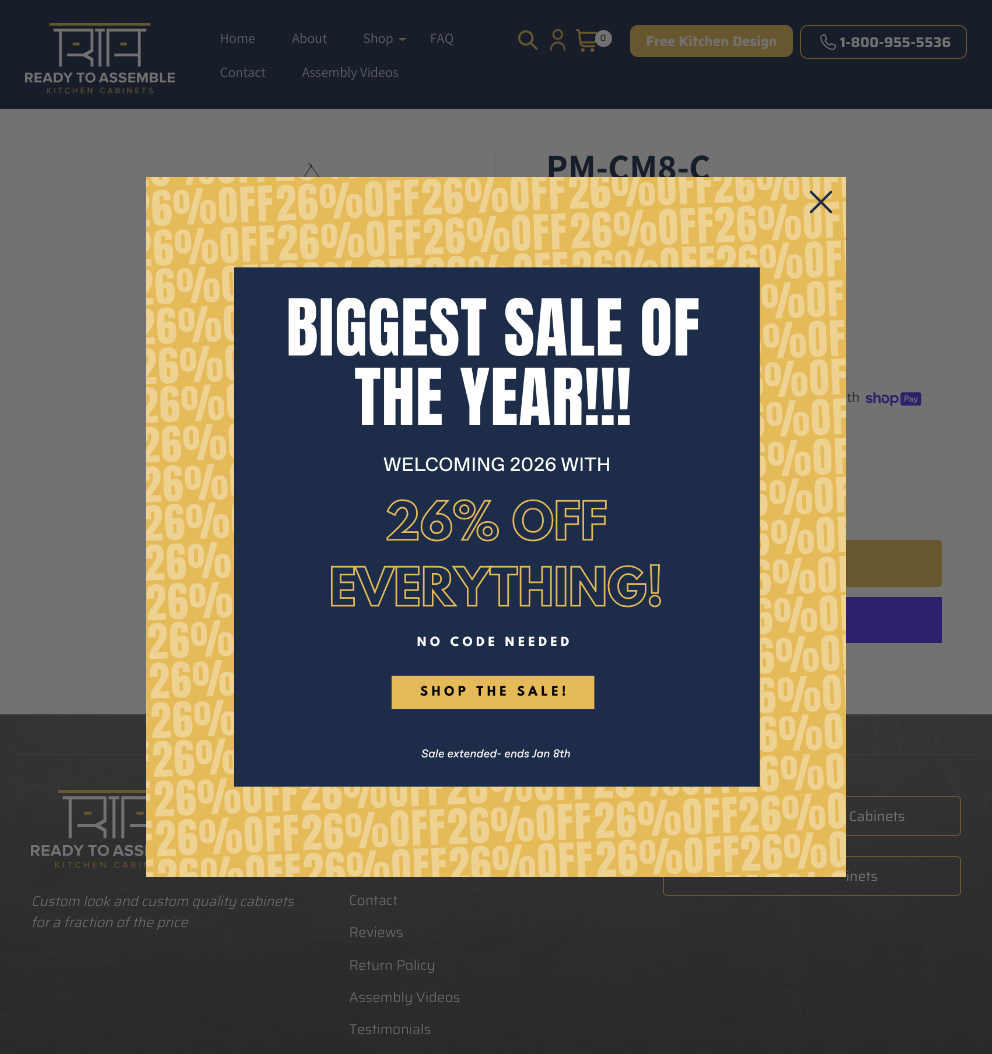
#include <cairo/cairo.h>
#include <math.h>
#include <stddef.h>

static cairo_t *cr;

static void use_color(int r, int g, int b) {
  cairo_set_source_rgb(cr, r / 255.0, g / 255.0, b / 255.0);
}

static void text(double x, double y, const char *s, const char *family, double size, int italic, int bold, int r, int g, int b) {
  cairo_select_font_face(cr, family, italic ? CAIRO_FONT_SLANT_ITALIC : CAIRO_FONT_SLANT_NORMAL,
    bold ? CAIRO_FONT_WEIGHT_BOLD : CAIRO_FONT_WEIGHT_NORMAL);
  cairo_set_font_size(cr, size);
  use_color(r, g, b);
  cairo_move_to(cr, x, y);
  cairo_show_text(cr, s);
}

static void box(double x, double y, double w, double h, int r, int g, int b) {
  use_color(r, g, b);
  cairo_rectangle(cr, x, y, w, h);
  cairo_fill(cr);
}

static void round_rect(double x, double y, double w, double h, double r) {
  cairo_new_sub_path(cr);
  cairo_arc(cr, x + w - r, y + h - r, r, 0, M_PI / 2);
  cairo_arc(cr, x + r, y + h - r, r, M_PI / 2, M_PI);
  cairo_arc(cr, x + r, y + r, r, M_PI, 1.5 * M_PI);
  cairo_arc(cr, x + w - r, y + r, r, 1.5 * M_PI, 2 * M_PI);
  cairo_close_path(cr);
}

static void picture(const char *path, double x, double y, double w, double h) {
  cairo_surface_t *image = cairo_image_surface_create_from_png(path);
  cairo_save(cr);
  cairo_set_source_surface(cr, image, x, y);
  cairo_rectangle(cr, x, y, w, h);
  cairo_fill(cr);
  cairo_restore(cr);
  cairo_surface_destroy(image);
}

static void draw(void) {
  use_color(114, 114, 114);
  cairo_paint(cr);
  box(0, 0, 992, 109, 24, 30, 41);
  picture("img_01.png", 25, 23, 150, 71);
  use_color(104, 86, 47);
  cairo_new_path(cr);
  cairo_move_to(cr, 398, 38);
  cairo_line_to(cr, 402.5, 41);
  cairo_line_to(cr, 407, 38);
  cairo_close_path(cr);
  cairo_fill(cr);
  picture("img_02.png", 518, 30, 20, 20);
  picture("img_03.png", 550, 29, 16, 22);
  picture("img_04.png", 576, 29, 22, 23);
  use_color(114, 114, 114);
  cairo_arc(cr, 603.5, 38.5, 8.5, 0, 2 * M_PI);
  cairo_fill(cr);
  use_color(104, 86, 47);
  round_rect(630.5, 25.5, 162, 31, 7.5);
  cairo_fill_preserve(cr);
  cairo_set_line_width(cr, 1);
  cairo_stroke(cr);
  round_rect(800.5, 25.5, 166, 33, 7.5);
  cairo_stroke(cr);
  picture("img_05.png", 820, 34, 17, 16);
  cairo_rectangle(cr, 50.5, 145.5, 445, 298);
  use_color(109, 109, 109);
  cairo_stroke(cr);
  picture("img_06.png", 177, 162, 186, 15);
  picture("img_07.png", 865, 392, 57, 14);
  use_color(104, 86, 47);
  round_rect(546.5, 540.5, 395, 46, 3.5);
  cairo_fill_preserve(cr);
  cairo_stroke(cr);
  box(846, 597, 96, 46, 46, 32, 106);
  picture("img_09.png", 0, 714, 992, 340);
  box(16, 754, 960, 1, 58, 58, 58);
  round_rect(663.5, 796.5, 297, 39, 3.5);
  use_color(104, 86, 47);
  cairo_stroke(cr);
  round_rect(663.5, 856.5, 297, 39, 3.5);
  cairo_stroke(cr);
  picture("img_10.png", 31, 790, 115, 78);
  text(220, 43, "Home", "assistant", 14, 0, 0, 92, 93, 96);
  text(292, 43, "About", "assistant", 14, 0, 0, 92, 93, 96);
  text(363, 43, "Shop", "assistant", 14, 0, 0, 92, 93, 96);
  text(430, 43, "FAQ", "assistant", 14, 0, 0, 92, 93, 96);
  text(220, 77, "Contact", "assistant", 14, 0, 0, 92, 93, 96);
  text(302, 77, "Assembly Videos", "assistant", 14, 0, 0, 92, 93, 96);
  text(600, 41, "0", "Saira Thin", 9, 0, 0, 19, 19, 19);
  text(646, 46, "Free Kitchen Design", "Saira", 14, 0, 1, 114, 114, 114);
  text(840, 47, "1-800-955-5536", "Saira", 14, 0, 1, 114, 114, 114);
  text(546, 180, "PM-CM8-C", "Assistant", 37, 0, 1, 24, 30, 41);
  text(847, 402, "th", "Noto Sans", 13, 0, 0, 43, 43, 43);
  picture("img_08.png", 146, 177, 700, 700);
  cairo_new_path(cr);
  cairo_move_to(cr, 811, 192);
  cairo_line_to(cr, 831, 212);
  cairo_move_to(cr, 811, 212);
  cairo_line_to(cr, 831, 192);
  cairo_close_path(cr);
  use_color(29, 45, 73);
  cairo_set_line_width(cr, 2.5);
  cairo_set_line_cap(cr, CAIRO_LINE_CAP_ROUND);
  cairo_set_line_join(cr, CAIRO_LINE_JOIN_ROUND);
  cairo_stroke(cr);
  text(849, 821, "Cabinets", "Saira Thin", 14, 0, 0, 114, 114, 114);
  text(846, 881, "inets", "Saira Thin", 14, 0, 0, 114, 114, 114);
  text(31, 906, "Custom look and custom quality cabinets", "Saira Light", 14, 1, 0, 114, 114, 114);
  text(31, 927, "for a fraction of the price", "Saira Light", 14, 1, 0, 114, 114, 114);
  text(349, 905, "Contact", "Saira Light", 14, 0, 0, 114, 114, 114);
  text(349, 937, "Reviews", "Saira Light", 14, 0, 0, 114, 114, 114);
  text(349, 970, "Return Policy", "Saira Light", 14, 0, 0, 114, 114, 114);
  text(349, 1002, "Assembly Videos", "Saira Light", 14, 0, 0, 114, 114, 114);
  text(349, 1034, "Testimonials", "Saira Light", 14, 0, 0, 114, 114, 114);
}

int main(void) {
  cairo_surface_t *surface = cairo_image_surface_create(CAIRO_FORMAT_RGB24, 992, 1054);
  cr = cairo_create(surface);
  cairo_font_options_t *options = cairo_font_options_create();
  cairo_font_options_set_hint_metrics(options, CAIRO_HINT_METRICS_OFF);
  cairo_font_options_set_hint_style(options, CAIRO_HINT_STYLE_NONE);
  cairo_set_font_options(cr, options);
  cairo_set_miter_limit(cr, 4);
  draw();
  cairo_surface_write_to_png(surface, "out.png");
  cairo_font_options_destroy(options);
  cairo_destroy(cr);
  cairo_surface_destroy(surface);
  return 0;
}
